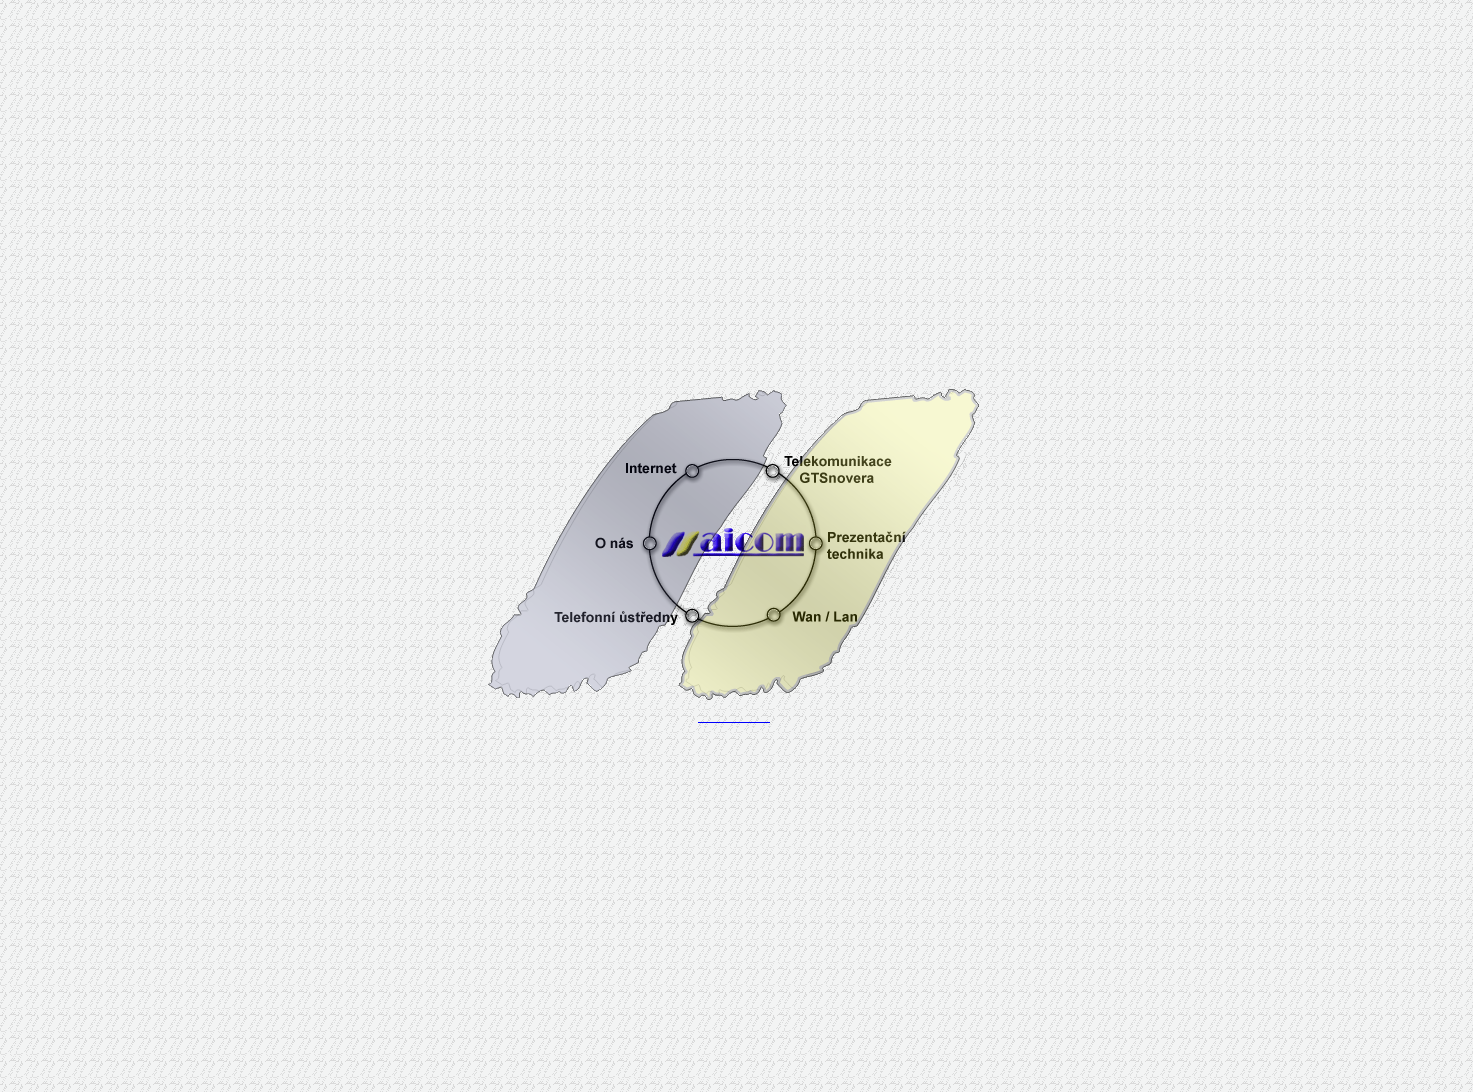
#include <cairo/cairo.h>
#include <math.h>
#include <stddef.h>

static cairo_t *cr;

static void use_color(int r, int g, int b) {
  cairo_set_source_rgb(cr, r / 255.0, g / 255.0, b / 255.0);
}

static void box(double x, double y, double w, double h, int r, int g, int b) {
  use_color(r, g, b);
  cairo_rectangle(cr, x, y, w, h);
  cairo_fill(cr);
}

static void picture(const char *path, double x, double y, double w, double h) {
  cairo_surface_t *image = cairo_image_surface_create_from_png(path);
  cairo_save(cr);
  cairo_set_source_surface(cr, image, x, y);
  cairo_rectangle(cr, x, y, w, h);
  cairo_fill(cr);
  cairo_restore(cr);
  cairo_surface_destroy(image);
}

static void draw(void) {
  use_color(243, 244, 244);
  cairo_paint(cr);
  picture("img_01.png", 0, 0, 1473, 1092);
  picture("img_02.png", 617, 389, 362, 63);
  picture("img_03.png", 593, 453, 23, 30);
  picture("img_04.png", 616, 452, 86, 31);
  picture("img_05.png", 702, 452, 60, 31);
  picture("img_06.png", 762, 452, 139, 31);
  picture("img_07.png", 901, 452, 69, 31);
  picture("img_08.png", 566, 483, 383, 42);
  picture("img_09.png", 548, 553, 3, 6);
  picture("img_10.png", 551, 525, 108, 34);
  picture("img_11.png", 659, 525, 147, 34);
  picture("img_12.png", 806, 525, 109, 34);
  picture("img_13.png", 519, 559, 379, 46);
  picture("img_14.png", 502, 605, 49, 22);
  picture("img_15.png", 551, 605, 151, 22);
  picture("img_16.png", 702, 605, 60, 22);
  picture("img_17.png", 762, 605, 112, 22);
  picture("img_18.png", 488, 627, 365, 73);
  box(698, 722, 72, 1, 0, 0, 255);
}

int main(void) {
  cairo_surface_t *surface = cairo_image_surface_create(CAIRO_FORMAT_RGB24, 1473, 1092);
  cr = cairo_create(surface);
  cairo_font_options_t *options = cairo_font_options_create();
  cairo_font_options_set_hint_metrics(options, CAIRO_HINT_METRICS_OFF);
  cairo_font_options_set_hint_style(options, CAIRO_HINT_STYLE_NONE);
  cairo_set_font_options(cr, options);
  cairo_set_miter_limit(cr, 4);
  draw();
  cairo_surface_write_to_png(surface, "out.png");
  cairo_font_options_destroy(options);
  cairo_destroy(cr);
  cairo_surface_destroy(surface);
  return 0;
}
